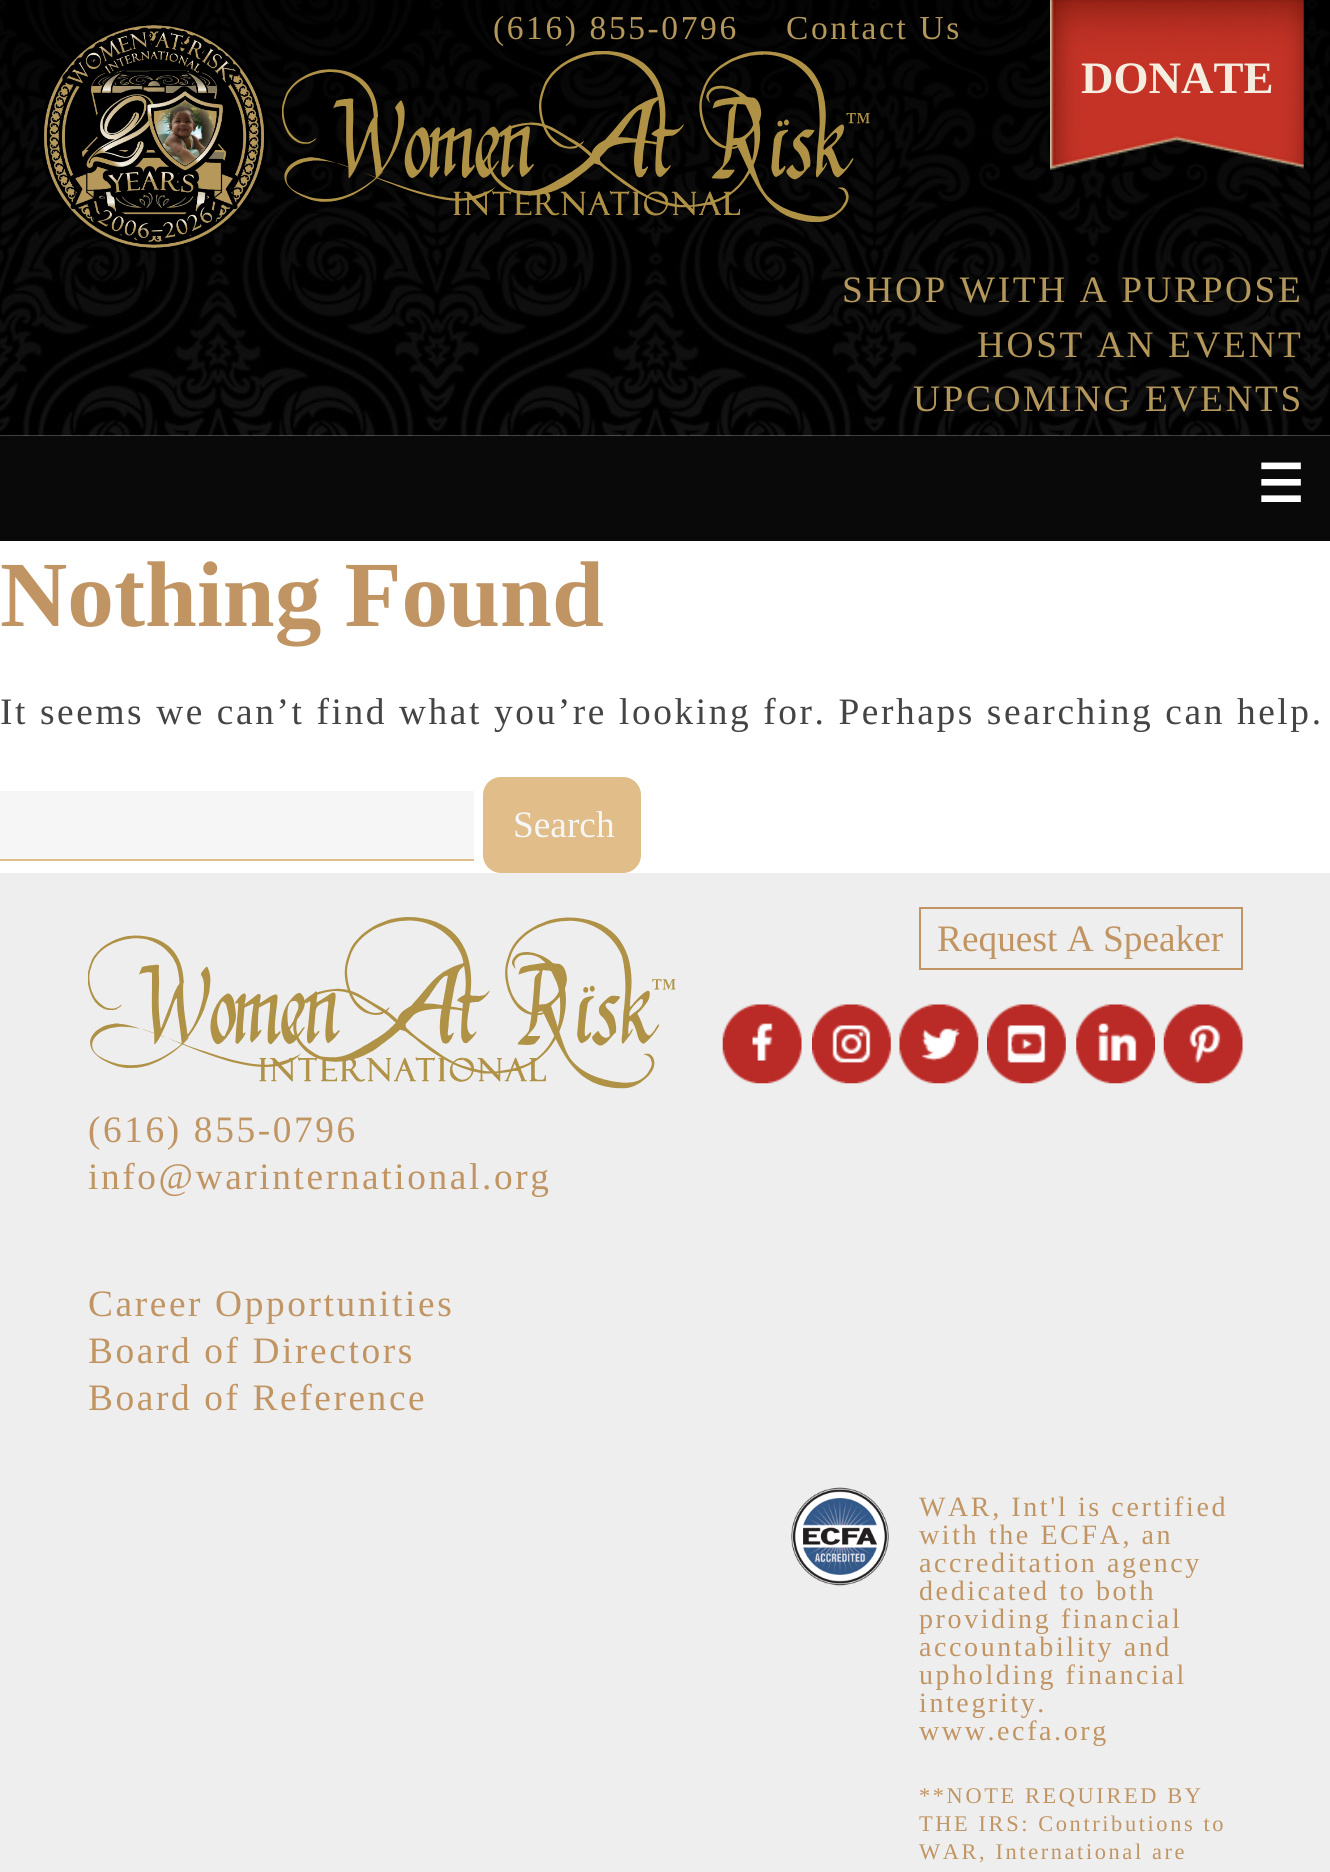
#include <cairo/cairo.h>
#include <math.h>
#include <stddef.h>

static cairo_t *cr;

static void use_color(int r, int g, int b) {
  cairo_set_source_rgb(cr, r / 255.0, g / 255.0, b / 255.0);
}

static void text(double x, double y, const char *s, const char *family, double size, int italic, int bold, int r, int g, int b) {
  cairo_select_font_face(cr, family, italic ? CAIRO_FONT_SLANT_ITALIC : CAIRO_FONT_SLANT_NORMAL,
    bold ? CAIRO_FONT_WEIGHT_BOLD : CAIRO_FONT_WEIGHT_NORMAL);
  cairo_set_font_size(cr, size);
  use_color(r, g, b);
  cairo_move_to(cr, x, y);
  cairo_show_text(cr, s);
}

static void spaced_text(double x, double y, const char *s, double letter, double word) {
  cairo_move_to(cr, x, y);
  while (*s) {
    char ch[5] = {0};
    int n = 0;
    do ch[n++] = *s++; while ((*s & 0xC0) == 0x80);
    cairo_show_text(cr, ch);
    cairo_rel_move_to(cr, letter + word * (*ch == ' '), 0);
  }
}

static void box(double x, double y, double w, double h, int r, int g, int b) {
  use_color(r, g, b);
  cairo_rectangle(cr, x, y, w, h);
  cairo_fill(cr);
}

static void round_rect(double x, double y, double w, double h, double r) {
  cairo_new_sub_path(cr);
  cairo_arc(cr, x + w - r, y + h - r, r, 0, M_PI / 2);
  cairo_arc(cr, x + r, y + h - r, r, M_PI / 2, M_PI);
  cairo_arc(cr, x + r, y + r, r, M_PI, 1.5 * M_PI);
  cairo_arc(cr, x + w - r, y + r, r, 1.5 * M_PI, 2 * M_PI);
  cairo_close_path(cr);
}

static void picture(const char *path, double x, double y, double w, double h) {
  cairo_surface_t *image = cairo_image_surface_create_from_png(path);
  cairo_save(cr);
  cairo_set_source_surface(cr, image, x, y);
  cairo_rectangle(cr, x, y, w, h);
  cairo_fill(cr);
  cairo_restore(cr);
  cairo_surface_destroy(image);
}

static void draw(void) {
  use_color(255, 255, 255);
  cairo_paint(cr);
  picture("img_01.png", 0, 0, 1330, 436);
  picture("img_02.png", 40, 23, 228, 228);
  picture("img_03.png", 282, 51, 588, 171);
  picture("img_04.png", 1050, 0, 254, 170);
  box(0, 436, 1330, 105, 9, 9, 9);
  box(0, 791, 474, 68, 246, 246, 246);
  box(0, 859, 474, 2, 225, 189, 137);
  round_rect(483, 777, 158, 96, 18);
  cairo_fill(cr);
  box(0, 873, 1330, 999, 238, 238, 238);
  cairo_rectangle(cr, 920, 908, 322, 61);
  use_color(193, 149, 99);
  cairo_stroke(cr);
  picture("img_05.png", 722, 1004, 80, 80);
  picture("img_06.png", 812, 1004, 79, 80);
  picture("img_07.png", 899, 1004, 80, 80);
  picture("img_08.png", 987, 1004, 79, 80);
  picture("img_09.png", 1076, 1004, 79, 80);
  picture("img_10.png", 1163, 1004, 80, 80);
  picture("img_11.png", 88, 917, 588, 172);
  picture("img_12.png", 791, 1487, 98, 99);
  cairo_select_font_face(cr, "Liberation Serif", CAIRO_FONT_SLANT_NORMAL, CAIRO_FONT_WEIGHT_NORMAL);
  cairo_set_font_size(cr, 33.5);
  use_color(180, 151, 90);
  spaced_text(493, 39, "(616) 855-0796", 2.6, 0);
  spaced_text(786, 39, "Contact Us", 2.6, 0);
  text(1081, 93, "DONATE", "Liberation Serif", 45, 0, 1, 245, 237, 224);
  cairo_select_font_face(cr, "Liberation Serif", CAIRO_FONT_SLANT_NORMAL, CAIRO_FONT_WEIGHT_NORMAL);
  cairo_set_font_size(cr, 37.35);
  use_color(180, 151, 90);
  spaced_text(842, 302, "SHOP WITH A PURPOSE", 2.6, 0);
  spaced_text(977, 357, "HOST AN EVENT", 2.6, 0);
  spaced_text(913, 411, "UPCOMING EVENTS", 2.6, 0);
  text(1257, 502, "☰", "DejaVu Sans", 52, 0, 1, 255, 255, 255);
  text(0, 626, "Nothing Found", "Liberation Serif", 93.25, 0, 1, 193, 149, 99);
  cairo_select_font_face(cr, "Liberation Serif", CAIRO_FONT_SLANT_NORMAL, CAIRO_FONT_WEIGHT_NORMAL);
  cairo_set_font_size(cr, 37.35);
  use_color(68, 68, 68);
  spaced_text(0, 724, "It seems we can’t find what you’re looking for. Perhaps searching can help.", 2.6, 0);
  text(513, 837, "Search", "Liberation Serif", 37.35, 0, 0, 246, 246, 246);
  text(937, 951, "Request A Speaker", "Liberation Serif", 37.35, 0, 0, 193, 149, 99);
  spaced_text(88, 1142, "(616) 855-0796", 2.6, 0);
  spaced_text(88, 1189, "info@warinternational.org", 2.6, 0);
  spaced_text(88, 1316, "Career Opportunities", 2.6, 0);
  spaced_text(88, 1363, "Board of Directors", 2.6, 0);
  spaced_text(88, 1410, "Board of Reference", 2.6, 0);
  cairo_set_font_size(cr, 28);
  spaced_text(919, 1516, "WAR, Int'l is certified", 2.6, 0);
  spaced_text(919, 1544, "with the ECFA, an", 2.6, 0);
  spaced_text(919, 1572, "accreditation agency", 2.6, 0);
  spaced_text(919, 1600, "dedicated to both", 2.6, 0);
  spaced_text(919, 1628, "providing financial", 2.6, 0);
  spaced_text(919, 1656, "accountability and", 2.6, 0);
  spaced_text(919, 1684, "upholding financial", 2.6, 0);
  spaced_text(919, 1712, "integrity.", 2.6, 0);
  spaced_text(919, 1740, "www.ecfa.org", 2.6, 0);
  cairo_set_font_size(cr, 22.4);
  spaced_text(919, 1803, "**NOTE REQUIRED BY", 2.6, 0);
  spaced_text(919, 1831, "THE IRS: Contributions to", 2.6, 0);
  spaced_text(919, 1859, "WAR, International are", 2.6, 0);
}

int main(void) {
  cairo_surface_t *surface = cairo_image_surface_create(CAIRO_FORMAT_RGB24, 1330, 1872);
  cr = cairo_create(surface);
  cairo_font_options_t *options = cairo_font_options_create();
  cairo_font_options_set_hint_metrics(options, CAIRO_HINT_METRICS_OFF);
  cairo_font_options_set_hint_style(options, CAIRO_HINT_STYLE_NONE);
  cairo_set_font_options(cr, options);
  cairo_set_miter_limit(cr, 4);
  draw();
  cairo_surface_write_to_png(surface, "out.png");
  cairo_font_options_destroy(options);
  cairo_destroy(cr);
  cairo_surface_destroy(surface);
  return 0;
}
